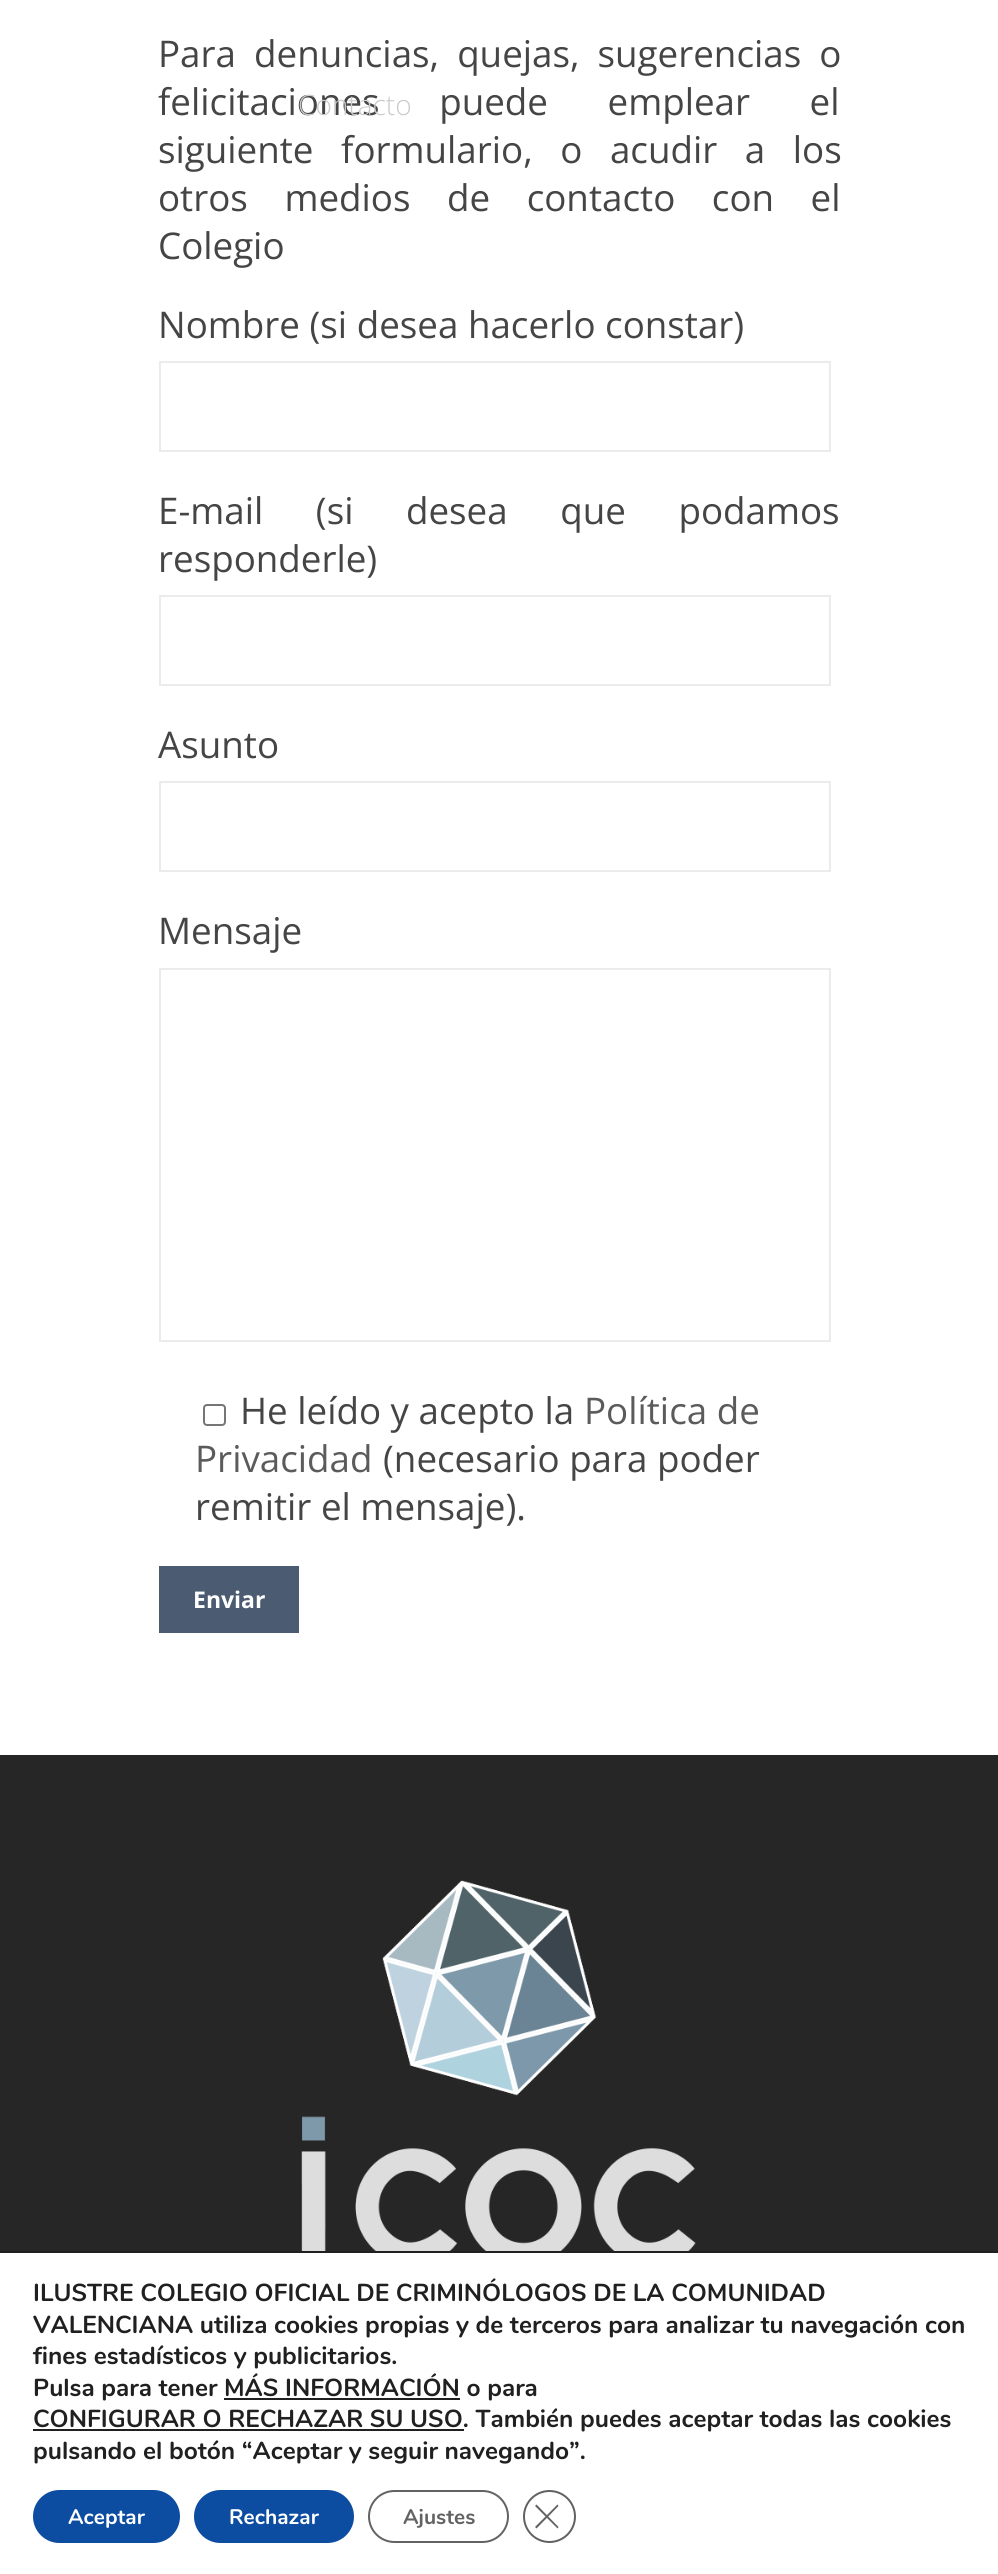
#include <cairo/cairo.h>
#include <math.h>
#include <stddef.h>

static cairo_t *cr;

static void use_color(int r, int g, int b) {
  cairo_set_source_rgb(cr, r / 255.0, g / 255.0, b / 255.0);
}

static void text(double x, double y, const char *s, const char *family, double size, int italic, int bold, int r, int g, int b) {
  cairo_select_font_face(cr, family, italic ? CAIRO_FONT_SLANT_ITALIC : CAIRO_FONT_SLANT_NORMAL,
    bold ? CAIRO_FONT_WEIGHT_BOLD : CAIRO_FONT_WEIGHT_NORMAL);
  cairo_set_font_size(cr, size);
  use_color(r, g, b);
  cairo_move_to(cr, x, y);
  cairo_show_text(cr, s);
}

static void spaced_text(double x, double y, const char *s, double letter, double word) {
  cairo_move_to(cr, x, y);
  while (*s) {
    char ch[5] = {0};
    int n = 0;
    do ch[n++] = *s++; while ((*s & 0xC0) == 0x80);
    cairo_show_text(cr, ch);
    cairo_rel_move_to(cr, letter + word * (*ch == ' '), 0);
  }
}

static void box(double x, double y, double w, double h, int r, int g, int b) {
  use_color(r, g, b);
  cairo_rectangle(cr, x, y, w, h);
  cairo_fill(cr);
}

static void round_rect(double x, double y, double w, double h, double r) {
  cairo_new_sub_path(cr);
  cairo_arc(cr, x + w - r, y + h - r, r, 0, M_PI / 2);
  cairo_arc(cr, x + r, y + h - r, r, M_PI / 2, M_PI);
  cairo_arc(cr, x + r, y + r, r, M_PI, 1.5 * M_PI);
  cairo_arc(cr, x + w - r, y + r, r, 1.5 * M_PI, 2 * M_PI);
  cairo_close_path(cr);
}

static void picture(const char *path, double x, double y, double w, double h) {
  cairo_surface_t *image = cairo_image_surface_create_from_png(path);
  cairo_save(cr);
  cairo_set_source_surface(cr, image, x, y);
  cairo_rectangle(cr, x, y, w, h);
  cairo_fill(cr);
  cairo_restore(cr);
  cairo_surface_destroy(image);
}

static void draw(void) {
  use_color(255, 255, 255);
  cairo_paint(cr);
  cairo_rectangle(cr, 160, 362, 670, 89);
  use_color(235, 235, 235);
  cairo_stroke(cr);
  cairo_rectangle(cr, 160, 596, 670, 89);
  cairo_stroke(cr);
  cairo_rectangle(cr, 160, 782, 670, 89);
  cairo_stroke(cr);
  cairo_rectangle(cr, 160, 969, 670, 372);
  cairo_stroke(cr);
  round_rect(204, 1405, 21, 20, 3);
  use_color(118, 118, 118);
  cairo_stroke(cr);
  box(159, 1566, 140, 67, 75, 92, 114);
  box(0, 1755, 998, 496, 38, 38, 38);
  picture("img_01.png", 301, 1880, 395, 371);
  box(0, 2251, 998, 2, 32, 32, 32);
  box(224, 2398, 236, 2, 32, 32, 32);
  box(33, 2429, 431, 2, 32, 32, 32);
  use_color(12, 77, 162);
  round_rect(33, 2490, 147, 53, 26.5);
  cairo_fill(cr);
  round_rect(194, 2490, 160, 53, 26.5);
  cairo_fill(cr);
  round_rect(369, 2491, 139, 51, 25.5);
  use_color(99, 99, 99);
  cairo_stroke(cr);
  cairo_arc(cr, 549.5, 2516.5, 25.5, 0, 2 * M_PI);
  use_color(98, 98, 98);
  cairo_stroke(cr);
  cairo_new_path(cr);
  cairo_move_to(cr, 557.5, 2504.5);
  cairo_line_to(cr, 558.5, 2506);
  cairo_line_to(cr, 536.5, 2528.5);
  cairo_line_to(cr, 535, 2527);
  cairo_close_path(cr);
  cairo_fill(cr);
  cairo_new_path(cr);
  cairo_move_to(cr, 535, 2506);
  cairo_line_to(cr, 536.5, 2504.5);
  cairo_line_to(cr, 558.5, 2527);
  cairo_line_to(cr, 557.5, 2528.5);
  cairo_close_path(cr);
  cairo_fill(cr);
  cairo_select_font_face(cr, "Open Sans", CAIRO_FONT_SLANT_NORMAL, CAIRO_FONT_WEIGHT_NORMAL);
  cairo_set_font_size(cr, 36.75);
  use_color(69, 69, 69);
  spaced_text(158, 67, "Para denuncias, quejas, sugerencias o", 0, 8.5);
  spaced_text(158, 115, "felicitaciones puede emplear el", 0, 50);
  spaced_text(158, 163, "siguiente formulario, o acudir a los", 0, 18);
  spaced_text(158, 211, "otros medios de contacto con el", 0, 27);
  text(158, 259, "Colegio", "Open Sans", 36.75, 0, 0, 69, 69, 69);
  text(158, 338, "Nombre (si desea hacerlo constar)", "Open Sans", 36.75, 0, 0, 69, 69, 69);
  spaced_text(158, 524, "E-mail (si desea que podamos", 0, 43);
  text(158, 572, "responderle)", "Open Sans", 36.75, 0, 0, 69, 69, 69);
  text(158, 758, "Asunto", "Open Sans", 36.75, 0, 0, 69, 69, 69);
  text(158, 944, "Mensaje", "Open Sans", 36.75, 0, 0, 69, 69, 69);
  text(240, 1424, "He leído y acepto la", "Open Sans", 36.75, 0, 0, 69, 69, 69);
  text(584, 1424, "Política de", "Open Sans", 36.75, 0, 0, 91, 91, 91);
  text(195, 1472, "Privacidad", "Open Sans", 36.75, 0, 0, 91, 91, 91);
  text(383, 1472, "(necesario para poder", "Open Sans", 36.75, 0, 0, 69, 69, 69);
  text(195, 1520, "remitir el mensaje).", "Open Sans", 36.75, 0, 0, 69, 69, 69);
  text(193, 1608, "Enviar", "Open Sans", 23, 0, 1, 255, 255, 255);
  text(298, 115, "Contacto", "Open Sans Light", 28, 0, 0, 203, 203, 203);
  text(33, 2301, "ILUSTRE COLEGIO OFICIAL DE CRIMINÓLOGOS DE LA COMUNIDAD", "Nunito", 24.5, 0, 1, 32, 32, 32);
  text(33, 2333, "VALENCIANA utiliza cookies propias y de terceros para analizar tu navegación con", "Nunito", 24.5, 0, 1, 32, 32, 32);
  text(33, 2364, "fines estadísticos y publicitarios.", "Nunito", 24.5, 0, 1, 32, 32, 32);
  text(33, 2396, "Pulsa para tener MÁS INFORMACIÓN o para", "Nunito", 24.5, 0, 1, 32, 32, 32);
  text(33, 2427, "CONFIGURAR O RECHAZAR SU USO. También puedes aceptar todas las cookies", "Nunito", 24.5, 0, 1, 32, 32, 32);
  text(33, 2459, "pulsando el botón “Aceptar y seguir navegando”.", "Nunito", 24.5, 0, 1, 32, 32, 32);
  text(68, 2524, "Aceptar", "Nunito", 21, 0, 1, 255, 255, 255);
  text(229, 2524, "Rechazar", "Nunito", 21, 0, 1, 255, 255, 255);
  text(403, 2524, "Ajustes", "Nunito", 21, 0, 1, 99, 99, 99);
}

int main(void) {
  cairo_surface_t *surface = cairo_image_surface_create(CAIRO_FORMAT_RGB24, 998, 2574);
  cr = cairo_create(surface);
  cairo_font_options_t *options = cairo_font_options_create();
  cairo_font_options_set_hint_metrics(options, CAIRO_HINT_METRICS_OFF);
  cairo_font_options_set_hint_style(options, CAIRO_HINT_STYLE_NONE);
  cairo_set_font_options(cr, options);
  cairo_set_miter_limit(cr, 4);
  draw();
  cairo_surface_write_to_png(surface, "out.png");
  cairo_font_options_destroy(options);
  cairo_destroy(cr);
  cairo_surface_destroy(surface);
  return 0;
}
